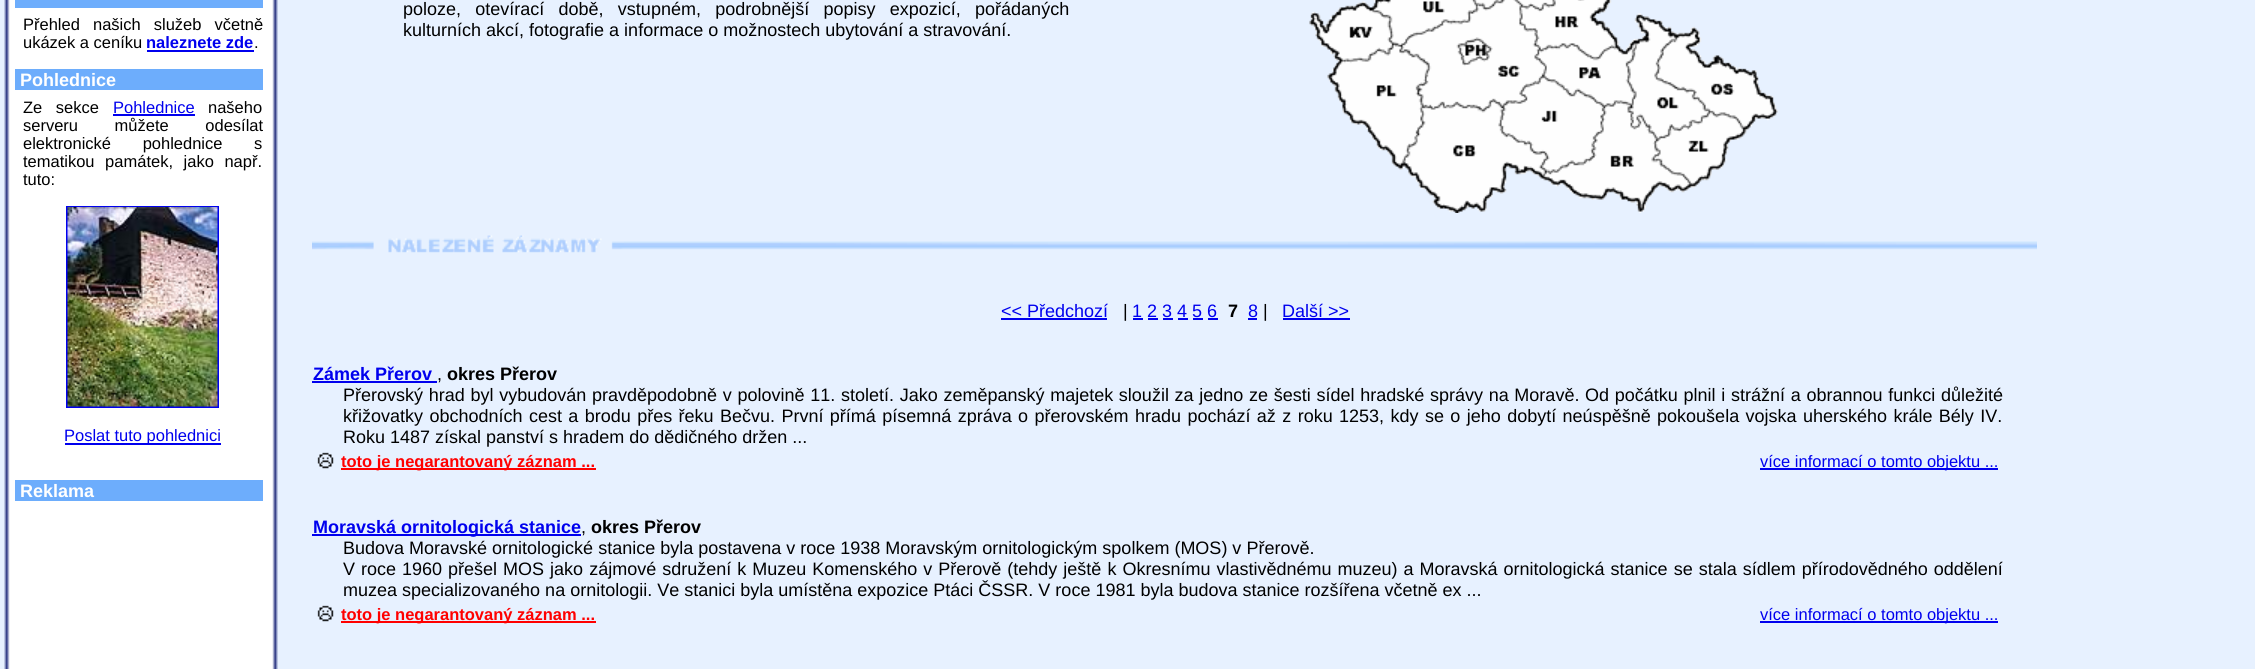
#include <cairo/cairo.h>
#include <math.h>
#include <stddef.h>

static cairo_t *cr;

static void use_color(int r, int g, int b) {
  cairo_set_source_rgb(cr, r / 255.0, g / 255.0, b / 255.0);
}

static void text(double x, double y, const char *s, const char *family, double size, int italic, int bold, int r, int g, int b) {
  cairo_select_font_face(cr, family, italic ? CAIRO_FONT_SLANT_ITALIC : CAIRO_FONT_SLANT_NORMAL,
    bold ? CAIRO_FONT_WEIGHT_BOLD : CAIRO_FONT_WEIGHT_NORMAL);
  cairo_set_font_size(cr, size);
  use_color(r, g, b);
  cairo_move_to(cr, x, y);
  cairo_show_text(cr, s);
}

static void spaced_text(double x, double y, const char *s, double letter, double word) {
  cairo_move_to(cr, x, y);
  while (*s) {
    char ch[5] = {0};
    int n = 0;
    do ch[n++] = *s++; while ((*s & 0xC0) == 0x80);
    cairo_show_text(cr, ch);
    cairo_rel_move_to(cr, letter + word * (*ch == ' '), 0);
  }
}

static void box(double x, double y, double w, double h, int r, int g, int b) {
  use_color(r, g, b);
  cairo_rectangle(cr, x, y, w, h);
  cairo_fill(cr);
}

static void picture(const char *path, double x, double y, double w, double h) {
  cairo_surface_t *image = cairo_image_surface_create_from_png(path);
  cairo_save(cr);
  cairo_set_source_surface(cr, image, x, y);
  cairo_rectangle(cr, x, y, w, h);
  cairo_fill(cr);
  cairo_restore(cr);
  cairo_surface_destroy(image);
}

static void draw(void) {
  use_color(231, 241, 255);
  cairo_paint(cr);
  picture("img_01.png", 4, 0, 11, 669);
  box(15, 0, 252, 669, 255, 255, 255);
  box(15, 0, 248, 8, 109, 173, 252);
  box(147, 50, 107, 2, 0, 0, 238);
  box(15, 69, 248, 21, 109, 173, 252);
  box(113, 114, 82, 2, 0, 0, 238);
  cairo_rectangle(cr, 67, 207, 151, 200);
  cairo_stroke(cr);
  picture("img_02.png", 67, 207, 151, 200);
  box(65, 443, 156, 2, 0, 0, 238);
  box(15, 480, 248, 21, 109, 173, 252);
  picture("img_03.png", 267, 0, 11, 669);
  picture("img_04.png", 1309, 0, 469, 213);
  picture("img_05.png", 312, 235, 312, 18);
  picture("img_06.png", 624, 241, 1413, 9);
  box(1001, 318, 106, 2, 0, 0, 238);
  box(1133, 318, 10, 2, 0, 0, 238);
  box(1248, 318, 9, 2, 0, 0, 238);
  box(1283, 318, 67, 2, 0, 0, 238);
  box(1148, 318, 10, 2, 0, 0, 238);
  box(1163, 318, 10, 2, 0, 0, 238);
  box(1178, 318, 10, 2, 0, 0, 238);
  box(1193, 318, 10, 2, 0, 0, 238);
  box(1208, 318, 10, 2, 0, 0, 238);
  box(312, 381, 125, 2, 0, 0, 238);
  picture("img_07.png", 317, 452, 17, 17);
  box(341, 468, 255, 2, 255, 0, 0);
  box(1760, 468, 238, 2, 0, 0, 238);
  box(312, 534, 269, 2, 0, 0, 238);
  picture("img_07.png", 317, 605, 17, 17);
  box(341, 621, 255, 2, 255, 0, 0);
  box(1760, 621, 238, 2, 0, 0, 238);
  cairo_select_font_face(cr, "Liberation Sans", CAIRO_FONT_SLANT_NORMAL, CAIRO_FONT_WEIGHT_NORMAL);
  cairo_set_font_size(cr, 16.5);
  use_color(0, 0, 0);
  spaced_text(23, 30, "Přehled našich služeb včetně", 0, 8.5);
  text(23, 48, "ukázek a ceníku", "Liberation Sans", 16.5, 0, 0, 0, 0, 0);
  text(146, 48, "naleznete zde", "Liberation Sans", 16.5, 0, 1, 0, 0, 238);
  text(254, 48, ".", "Liberation Sans", 16.5, 0, 0, 0, 0, 0);
  text(20, 86, "Pohlednice", "Liberation Sans", 18, 0, 1, 255, 255, 255);
  cairo_select_font_face(cr, "Liberation Sans", CAIRO_FONT_SLANT_NORMAL, CAIRO_FONT_WEIGHT_NORMAL);
  cairo_set_font_size(cr, 16.5);
  use_color(0, 0, 0);
  spaced_text(23, 113, "Ze sekce", 0, 9);
  text(113, 113, "Pohlednice", "Liberation Sans", 16.5, 0, 0, 0, 0, 238);
  text(208, 113, "našeho", "Liberation Sans", 16.5, 0, 0, 0, 0, 0);
  spaced_text(23, 131, "serveru můžete odesílat", 0, 32);
  spaced_text(23, 149, "elektronické pohlednice s", 0, 27);
  spaced_text(23, 167, "tematikou památek, jako např.", 0, 6);
  text(23, 185, "tuto:", "Liberation Sans", 16.5, 0, 0, 0, 0, 0);
  text(64, 441, "Poslat tuto pohlednici", "Liberation Sans", 16.5, 0, 0, 0, 0, 238);
  text(20, 497, "Reklama", "Liberation Sans", 18, 0, 1, 255, 255, 255);
  cairo_select_font_face(cr, "Liberation Sans", CAIRO_FONT_SLANT_NORMAL, CAIRO_FONT_WEIGHT_NORMAL);
  use_color(0, 0, 0);
  spaced_text(403, 15, "poloze, otevírací době, vstupném, podrobnější popisy expozicí, pořádaných", 0, 9.25);
  text(403, 36, "kulturních akcí, fotografie a informace o možnostech ubytování a stravování.", "Liberation Sans", 18, 0, 0, 0, 0, 0);
  text(1001, 317, "<< Předchozí", "Liberation Sans", 18, 0, 0, 0, 0, 238);
  text(1123, 317, "|", "Liberation Sans", 18, 0, 0, 0, 0, 0);
  text(1132, 317, "1 2 3 4 5 6", "Liberation Sans", 18, 0, 0, 0, 0, 238);
  text(1228, 317, "7", "Liberation Sans", 18, 0, 1, 0, 0, 0);
  text(1248, 317, "8", "Liberation Sans", 18, 0, 0, 0, 0, 238);
  text(1263, 317, "|", "Liberation Sans", 18, 0, 0, 0, 0, 0);
  text(1282, 317, "Další >>", "Liberation Sans", 18, 0, 0, 0, 0, 238);
  text(313, 380, "Zámek Přerov", "Liberation Sans", 18, 0, 1, 0, 0, 238);
  text(437, 380, ",", "Liberation Sans", 18, 0, 0, 0, 0, 0);
  text(447, 380, "okres Přerov", "Liberation Sans", 18, 0, 1, 0, 0, 0);
  cairo_select_font_face(cr, "Liberation Sans", CAIRO_FONT_SLANT_NORMAL, CAIRO_FONT_WEIGHT_NORMAL);
  spaced_text(343, 401, "Přerovský hrad byl vybudován pravděpodobně v polovině 11. století. Jako zeměpanský majetek sloužil za jedno ze šesti sídel hradské správy na Moravě. Od počátku plnil i strážní a obrannou funkci důležité", 0, 0.7);
  spaced_text(343, 422, "křižovatky obchodních cest a brodu přes řeku Bečvu. První přímá písemná zpráva o přerovském hradu pochází až z roku 1253, kdy se o jeho dobytí neúspěšně pokoušela vojska uherského krále Bély IV.", 0, 1.4);
  text(343, 443, "Roku 1487 získal panství s hradem do dědičného držen ...", "Liberation Sans", 18, 0, 0, 0, 0, 0);
  text(341, 467, "toto je negarantovaný záznam ...", "Liberation Sans", 16.5, 0, 1, 255, 0, 0);
  text(1760, 467, "více informací o tomto objektu ...", "Liberation Sans", 16.5, 0, 0, 0, 0, 238);
  text(313, 533, "Moravská ornitologická stanice", "Liberation Sans", 18, 0, 1, 0, 0, 238);
  text(581, 533, ",", "Liberation Sans", 18, 0, 0, 0, 0, 0);
  text(591, 533, "okres Přerov", "Liberation Sans", 18, 0, 1, 0, 0, 0);
  text(343, 554, "Budova Moravské ornitologické stanice byla postavena v roce 1938 Moravským ornitologickým spolkem (MOS) v Přerově.", "Liberation Sans", 18, 0, 0, 0, 0, 0);
  spaced_text(343, 575, "V roce 1960 přešel MOS jako zájmové sdružení k Muzeu Komenského v Přerově (tehdy ještě k Okresnímu vlastivědnému muzeu) a Moravská ornitologická stanice se stala sídlem přírodovědného oddělení", 0, 1);
  text(343, 596, "muzea specializovaného na ornitologii. Ve stanici byla umístěna expozice Ptáci ČSSR. V roce 1981 byla budova stanice rozšířena včetně ex ...", "Liberation Sans", 18, 0, 0, 0, 0, 0);
  text(341, 620, "toto je negarantovaný záznam ...", "Liberation Sans", 16.5, 0, 1, 255, 0, 0);
  text(1760, 620, "více informací o tomto objektu ...", "Liberation Sans", 16.5, 0, 0, 0, 0, 238);
}

int main(void) {
  cairo_surface_t *surface = cairo_image_surface_create(CAIRO_FORMAT_RGB24, 2255, 669);
  cr = cairo_create(surface);
  cairo_font_options_t *options = cairo_font_options_create();
  cairo_font_options_set_hint_metrics(options, CAIRO_HINT_METRICS_OFF);
  cairo_font_options_set_hint_style(options, CAIRO_HINT_STYLE_NONE);
  cairo_set_font_options(cr, options);
  cairo_set_miter_limit(cr, 4);
  draw();
  cairo_surface_write_to_png(surface, "out.png");
  cairo_font_options_destroy(options);
  cairo_destroy(cr);
  cairo_surface_destroy(surface);
  return 0;
}
